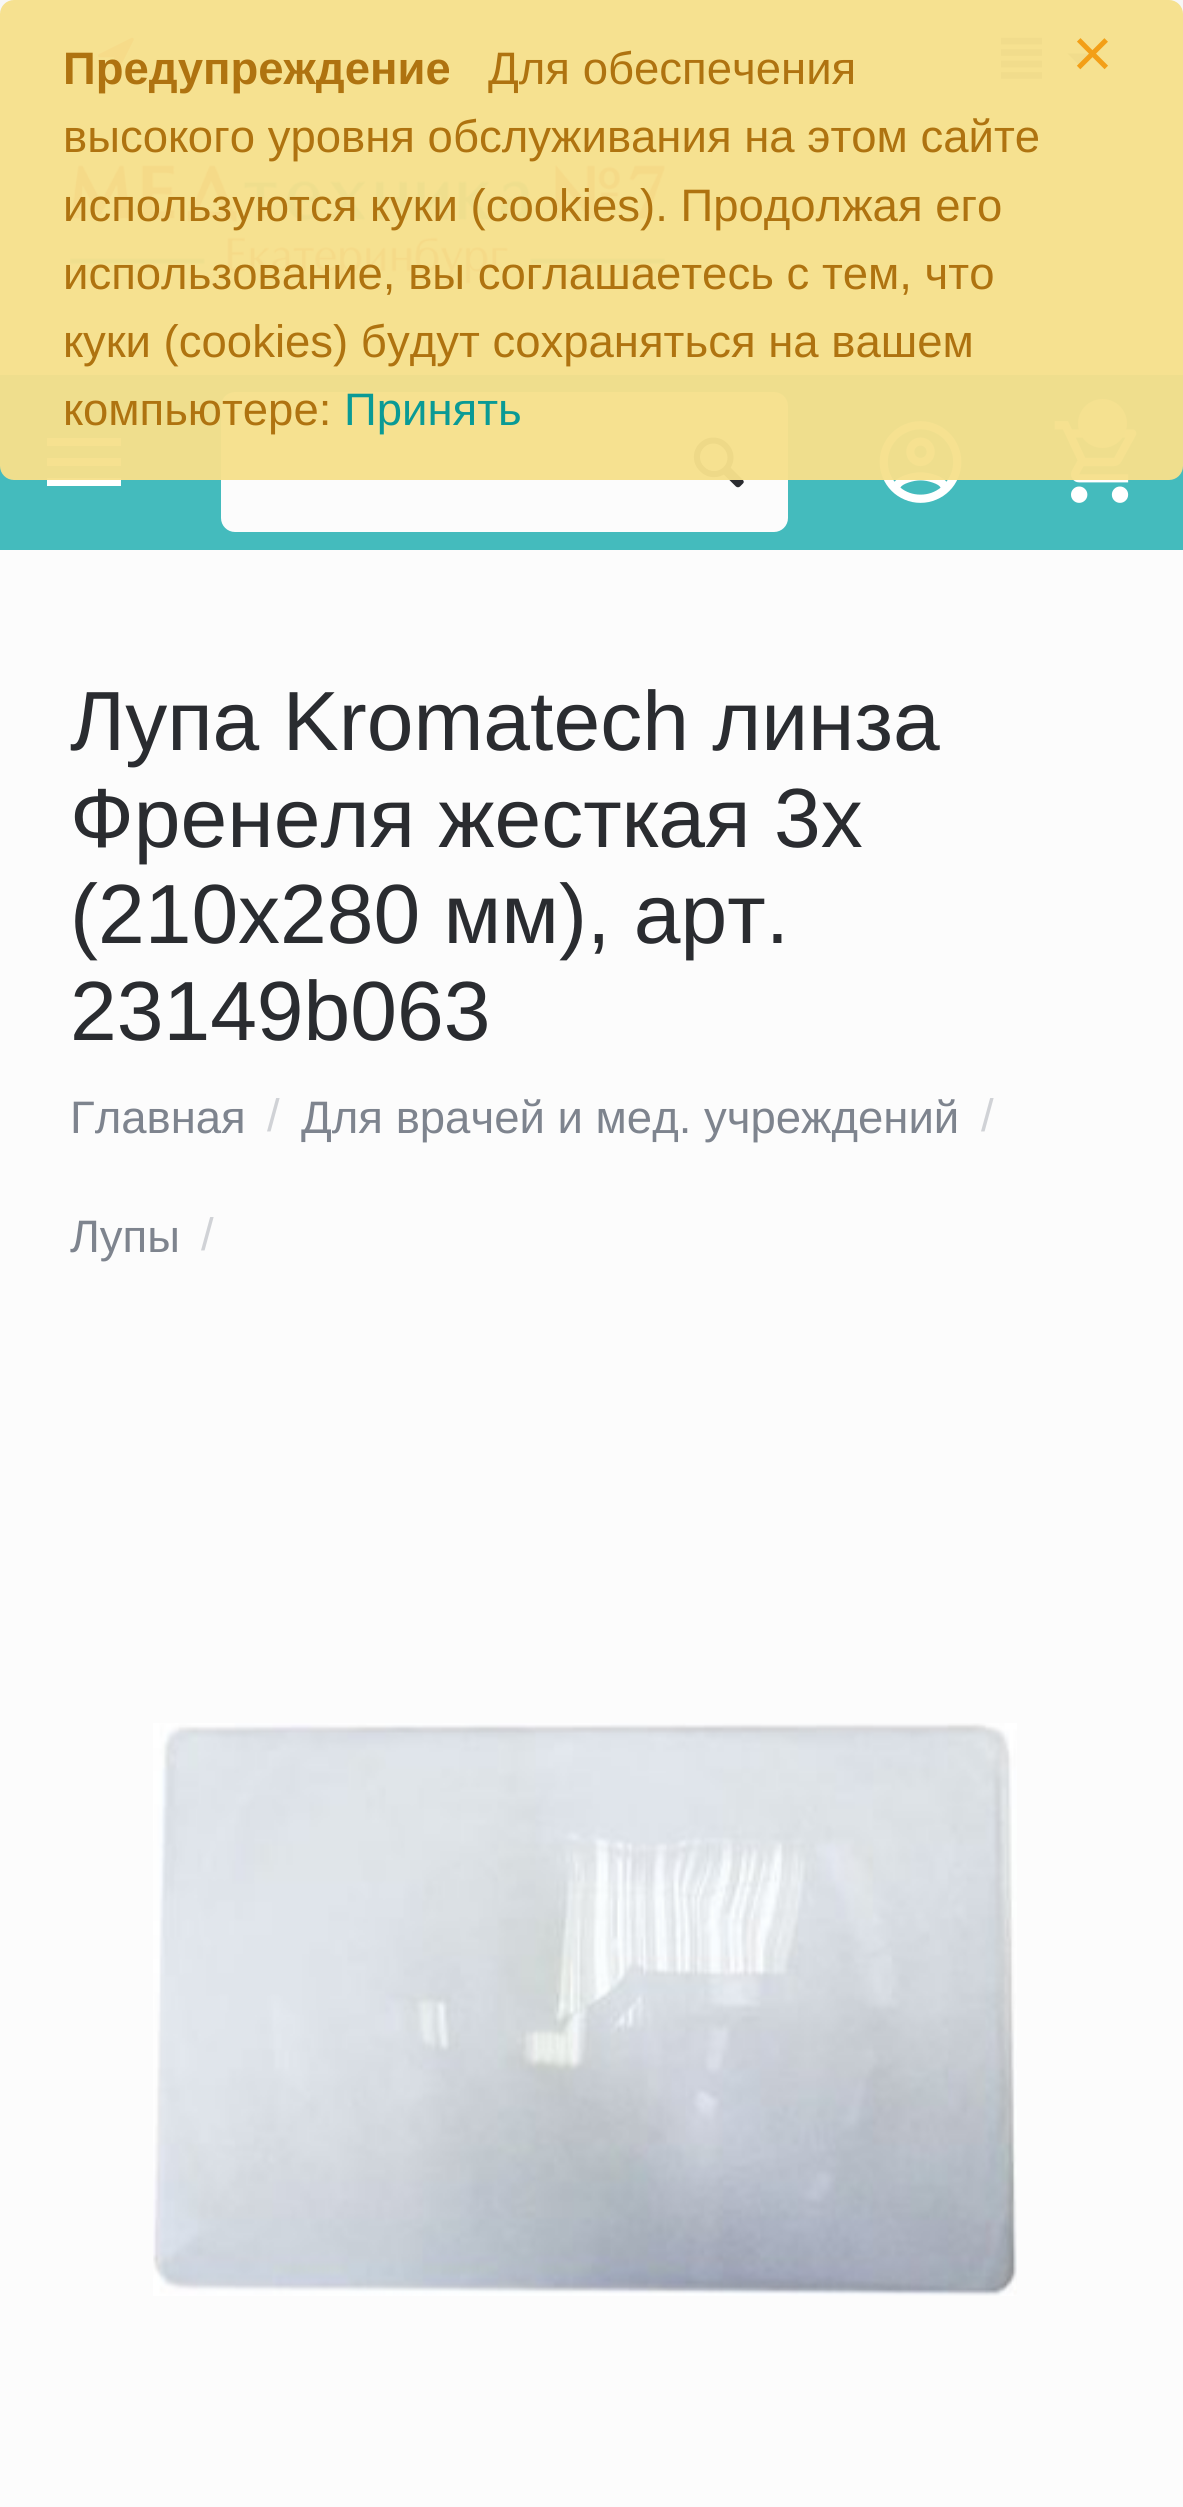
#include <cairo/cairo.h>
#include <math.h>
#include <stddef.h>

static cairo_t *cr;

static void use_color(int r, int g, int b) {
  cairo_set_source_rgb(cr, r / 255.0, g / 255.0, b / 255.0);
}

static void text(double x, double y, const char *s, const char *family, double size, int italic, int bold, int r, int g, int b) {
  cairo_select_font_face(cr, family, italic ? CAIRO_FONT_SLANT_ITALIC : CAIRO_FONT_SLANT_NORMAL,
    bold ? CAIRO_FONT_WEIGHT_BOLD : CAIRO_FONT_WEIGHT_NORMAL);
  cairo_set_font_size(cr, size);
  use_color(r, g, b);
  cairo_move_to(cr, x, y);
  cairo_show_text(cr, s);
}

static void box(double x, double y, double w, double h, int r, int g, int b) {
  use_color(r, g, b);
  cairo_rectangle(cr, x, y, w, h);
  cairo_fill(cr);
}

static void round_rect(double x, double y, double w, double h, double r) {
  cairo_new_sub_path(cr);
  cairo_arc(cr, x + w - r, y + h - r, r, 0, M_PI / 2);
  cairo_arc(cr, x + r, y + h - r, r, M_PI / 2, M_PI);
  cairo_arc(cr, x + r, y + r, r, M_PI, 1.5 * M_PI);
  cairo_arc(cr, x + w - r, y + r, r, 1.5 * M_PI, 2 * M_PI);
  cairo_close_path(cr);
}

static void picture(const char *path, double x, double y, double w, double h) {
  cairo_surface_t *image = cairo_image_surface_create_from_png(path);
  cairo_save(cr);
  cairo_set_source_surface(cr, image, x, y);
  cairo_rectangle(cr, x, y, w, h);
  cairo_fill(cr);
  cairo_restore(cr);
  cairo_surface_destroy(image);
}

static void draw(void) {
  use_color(252, 252, 252);
  cairo_paint(cr);
  box(0, 0, 1183, 112, 247, 247, 247);
  picture("img_01.png", 98, 37, 36, 37);
  picture("img_02.png", 1001, 37, 41, 42);
  use_color(126, 132, 142);
  cairo_new_path(cr);
  cairo_move_to(cr, 1081, 67);
  cairo_line_to(cr, 1067.5, 53.5);
  cairo_line_to(cr, 1094, 53.5);
  cairo_close_path(cr);
  cairo_fill(cr);
  picture("img_03.png", 70, 164, 595, 120);
  box(0, 375, 1183, 175, 68, 187, 189);
  use_color(255, 255, 255);
  cairo_new_path(cr);
  cairo_move_to(cr, 47, 486);
  cairo_line_to(cr, 121, 486);
  cairo_line_to(cr, 121, 478);
  cairo_line_to(cr, 47, 478);
  cairo_close_path(cr);
  cairo_move_to(cr, 47, 466);
  cairo_line_to(cr, 121, 466);
  cairo_line_to(cr, 121, 458);
  cairo_line_to(cr, 47, 458);
  cairo_close_path(cr);
  cairo_move_to(cr, 47, 438);
  cairo_line_to(cr, 47, 446);
  cairo_line_to(cr, 121, 446);
  cairo_line_to(cr, 121, 438);
  cairo_close_path(cr);
  cairo_fill(cr);
  use_color(252, 252, 252);
  round_rect(221, 392, 567, 140, 14);
  cairo_fill(cr);
  picture("img_04.png", 693, 437, 51, 51);
  picture("img_05.png", 879, 421, 83, 82);
  picture("img_06.png", 1054, 421, 83, 82);
  use_color(238, 243, 244);
  cairo_arc(cr, 1102.5, 423.5, 24.5, 0, 2 * M_PI);
  cairo_fill(cr);
  cairo_set_source_rgba(cr, 0.961, 0.878, 0.549, 0.96);
  round_rect(0, 0, 1183, 480, 14);
  cairo_fill(cr);
  picture("img_07.png", 153, 1723, 864, 573);
  text(63, 84, "Предупреждение", "Liberation Sans", 45.5, 0, 1, 175, 115, 16);
  text(488, 84, "Для обеспечения", "Liberation Sans", 45.5, 0, 0, 175, 115, 16);
  text(1072, 77, "×", "Liberation Sans", 70, 0, 0, 243, 159, 23);
  text(63, 152, "высокого уровня обслуживания на этом сайте", "Liberation Sans", 45.5, 0, 0, 175, 115, 16);
  text(63, 221, "используются куки (cookies). Продолжая его", "Liberation Sans", 45.5, 0, 0, 175, 115, 16);
  text(63, 289, "использование, вы соглашаетесь с тем, что", "Liberation Sans", 45.5, 0, 0, 175, 115, 16);
  text(63, 357, "куки (cookies) будут сохраняться на вашем", "Liberation Sans", 45.5, 0, 0, 175, 115, 16);
  text(63, 425, "компьютере:", "Liberation Sans", 45.5, 0, 0, 175, 115, 16);
  text(344, 425, "Принять", "Liberation Sans", 45.5, 0, 0, 10, 154, 149);
  text(70, 750, "Лупа Kromatech линза", "Liberation Sans", 84, 0, 0, 42, 44, 48);
  text(70, 847, "Френеля жесткая 3х", "Liberation Sans", 84, 0, 0, 42, 44, 48);
  text(70, 943, "(210х280 мм), арт.", "Liberation Sans", 84, 0, 0, 42, 44, 48);
  text(70, 1040, "23149b063", "Liberation Sans", 84, 0, 0, 42, 44, 48);
  text(70, 1133, "Главная", "Liberation Sans", 45.5, 0, 0, 126, 132, 142);
  text(267, 1131, "/", "Liberation Sans", 45.5, 0, 0, 208, 210, 214);
  text(301, 1133, "Для врачей и мед. учреждений", "Liberation Sans", 45.5, 0, 0, 126, 132, 142);
  text(981, 1131, "/", "Liberation Sans", 45.5, 0, 0, 208, 210, 214);
  text(70, 1252, "Лупы", "Liberation Sans", 45.5, 0, 0, 126, 132, 142);
  text(201, 1250, "/", "Liberation Sans", 45.5, 0, 0, 208, 210, 214);
}

int main(void) {
  cairo_surface_t *surface = cairo_image_surface_create(CAIRO_FORMAT_RGB24, 1183, 2507);
  cr = cairo_create(surface);
  cairo_font_options_t *options = cairo_font_options_create();
  cairo_font_options_set_hint_metrics(options, CAIRO_HINT_METRICS_OFF);
  cairo_font_options_set_hint_style(options, CAIRO_HINT_STYLE_NONE);
  cairo_set_font_options(cr, options);
  cairo_set_miter_limit(cr, 4);
  draw();
  cairo_surface_write_to_png(surface, "out.png");
  cairo_font_options_destroy(options);
  cairo_destroy(cr);
  cairo_surface_destroy(surface);
  return 0;
}
